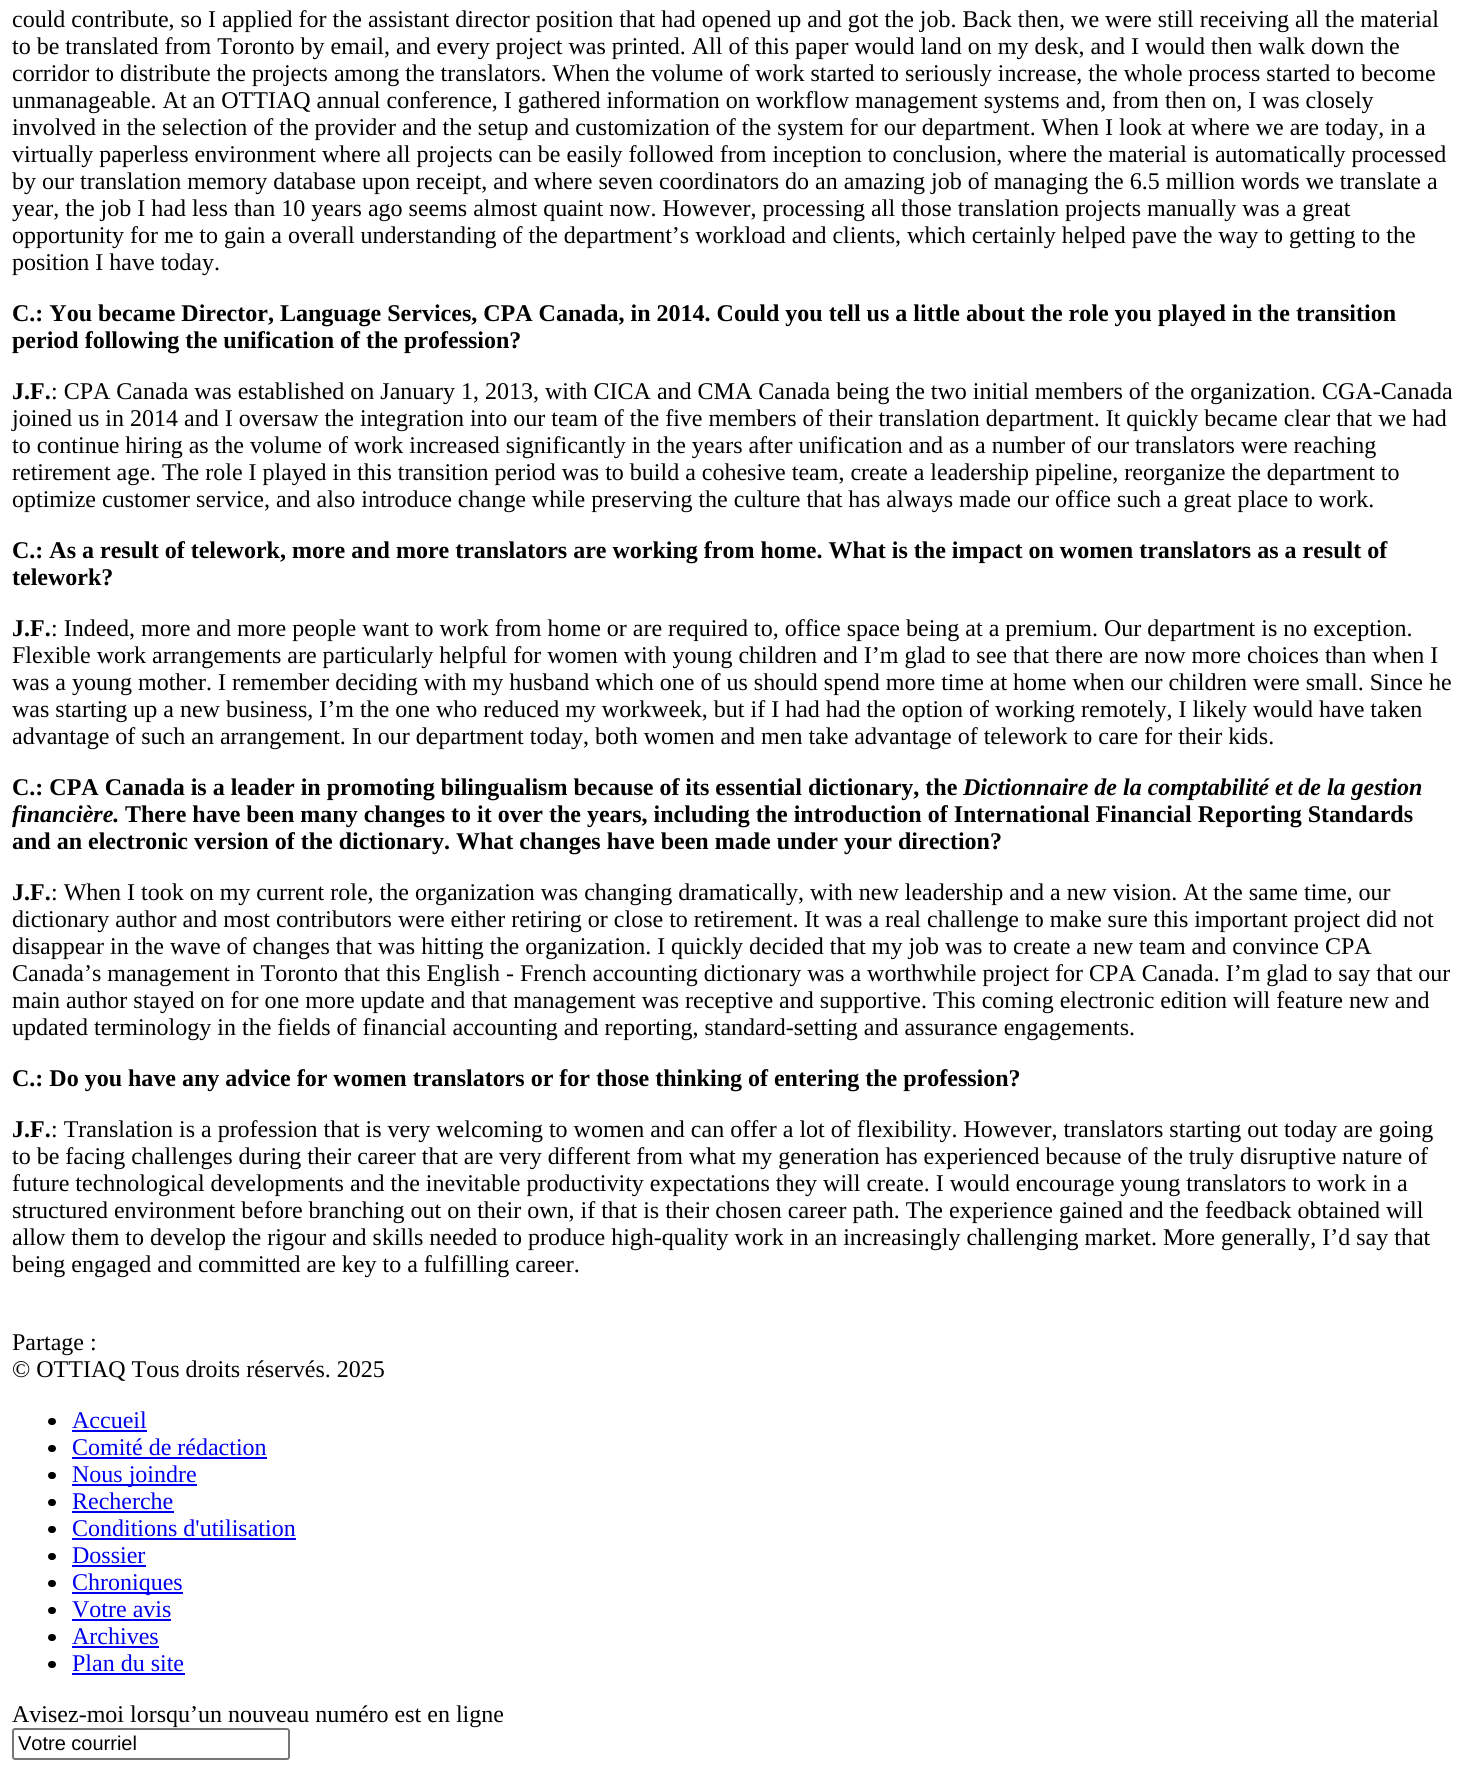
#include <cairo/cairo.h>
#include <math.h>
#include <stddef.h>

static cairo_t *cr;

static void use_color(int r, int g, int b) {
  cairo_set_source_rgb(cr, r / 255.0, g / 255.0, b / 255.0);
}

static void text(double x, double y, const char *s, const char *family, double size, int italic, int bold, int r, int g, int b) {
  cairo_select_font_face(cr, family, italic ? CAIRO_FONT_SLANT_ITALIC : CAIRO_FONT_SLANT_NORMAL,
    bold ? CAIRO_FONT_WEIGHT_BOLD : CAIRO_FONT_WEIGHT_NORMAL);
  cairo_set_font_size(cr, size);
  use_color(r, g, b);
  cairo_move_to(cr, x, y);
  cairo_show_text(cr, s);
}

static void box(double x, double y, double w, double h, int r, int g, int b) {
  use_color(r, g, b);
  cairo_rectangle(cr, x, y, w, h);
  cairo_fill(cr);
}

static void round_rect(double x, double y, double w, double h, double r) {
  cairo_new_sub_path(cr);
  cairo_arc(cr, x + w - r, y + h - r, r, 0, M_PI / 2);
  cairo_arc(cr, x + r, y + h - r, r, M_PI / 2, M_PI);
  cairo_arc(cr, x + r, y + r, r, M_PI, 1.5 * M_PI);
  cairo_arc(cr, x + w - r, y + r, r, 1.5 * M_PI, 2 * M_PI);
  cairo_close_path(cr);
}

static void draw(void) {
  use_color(255, 255, 255);
  cairo_paint(cr);
  use_color(0, 0, 0);
  round_rect(48, 1418, 8, 7, 3.5);
  cairo_fill(cr);
  box(72, 1430, 75, 2, 0, 0, 238);
  use_color(0, 0, 0);
  round_rect(48, 1445, 8, 7, 3.5);
  cairo_fill(cr);
  box(72, 1457, 195, 2, 0, 0, 238);
  use_color(0, 0, 0);
  round_rect(48, 1472, 8, 7, 3.5);
  cairo_fill(cr);
  box(72, 1484, 125, 2, 0, 0, 238);
  use_color(0, 0, 0);
  round_rect(48, 1499, 8, 7, 3.5);
  cairo_fill(cr);
  box(72, 1511, 102, 2, 0, 0, 238);
  use_color(0, 0, 0);
  round_rect(48, 1526, 8, 7, 3.5);
  cairo_fill(cr);
  box(72, 1538, 224, 2, 0, 0, 238);
  use_color(0, 0, 0);
  round_rect(48, 1553, 8, 7, 3.5);
  cairo_fill(cr);
  box(72, 1565, 74, 2, 0, 0, 238);
  use_color(0, 0, 0);
  round_rect(48, 1580, 8, 7, 3.5);
  cairo_fill(cr);
  box(72, 1592, 111, 2, 0, 0, 238);
  use_color(0, 0, 0);
  round_rect(48, 1607, 8, 7, 3.5);
  cairo_fill(cr);
  box(72, 1619, 99, 2, 0, 0, 238);
  use_color(0, 0, 0);
  round_rect(48, 1634, 8, 7, 3.5);
  cairo_fill(cr);
  box(72, 1646, 87, 2, 0, 0, 238);
  use_color(0, 0, 0);
  round_rect(48, 1661, 8, 7, 3.5);
  cairo_fill(cr);
  box(72, 1673, 113, 2, 0, 0, 238);
  round_rect(13, 1729, 276, 30, 2);
  use_color(118, 118, 118);
  cairo_stroke(cr);
  text(12, 27, "could contribute, so I applied for the assistant director position that had opened up and got the job. Back then, we were still receiving all the material", "Liberation Serif", 24, 0, 0, 0, 0, 0);
  text(12, 54, "to be translated from Toronto by email, and every project was printed. All of this paper would land on my desk, and I would then walk down the", "Liberation Serif", 24, 0, 0, 0, 0, 0);
  text(12, 81, "corridor to distribute the projects among the translators. When the volume of work started to seriously increase, the whole process started to become", "Liberation Serif", 24, 0, 0, 0, 0, 0);
  text(12, 108, "unmanageable. At an OTTIAQ annual conference, I gathered information on workflow management systems and, from then on, I was closely", "Liberation Serif", 24, 0, 0, 0, 0, 0);
  text(12, 135, "involved in the selection of the provider and the setup and customization of the system for our department. When I look at where we are today, in a", "Liberation Serif", 24, 0, 0, 0, 0, 0);
  text(12, 162, "virtually paperless environment where all projects can be easily followed from inception to conclusion, where the material is automatically processed", "Liberation Serif", 24, 0, 0, 0, 0, 0);
  text(12, 189, "by our translation memory database upon receipt, and where seven coordinators do an amazing job of managing the 6.5 million words we translate a", "Liberation Serif", 24, 0, 0, 0, 0, 0);
  text(12, 216, "year, the job I had less than 10 years ago seems almost quaint now. However, processing all those translation projects manually was a great", "Liberation Serif", 24, 0, 0, 0, 0, 0);
  text(12, 243, "opportunity for me to gain a overall understanding of the department’s workload and clients, which certainly helped pave the way to getting to the", "Liberation Serif", 24, 0, 0, 0, 0, 0);
  text(12, 270, "position I have today.", "Liberation Serif", 24, 0, 0, 0, 0, 0);
  text(12, 321, "C.: You became Director, Language Services, CPA Canada, in 2014. Could you tell us a little about the role you played in the transition", "Liberation Serif", 24, 0, 1, 0, 0, 0);
  text(12, 348, "period following the unification of the profession?", "Liberation Serif", 24, 0, 1, 0, 0, 0);
  text(12, 399, "J.F.", "Liberation Serif", 24, 0, 1, 0, 0, 0);
  text(51, 399, ": CPA Canada was established on January 1, 2013, with CICA and CMA Canada being the two initial members of the organization. CGA-Canada", "Liberation Serif", 24, 0, 0, 0, 0, 0);
  text(12, 426, "joined us in 2014 and I oversaw the integration into our team of the five members of their translation department. It quickly became clear that we had", "Liberation Serif", 24, 0, 0, 0, 0, 0);
  text(12, 453, "to continue hiring as the volume of work increased significantly in the years after unification and as a number of our translators were reaching", "Liberation Serif", 24, 0, 0, 0, 0, 0);
  text(12, 480, "retirement age. The role I played in this transition period was to build a cohesive team, create a leadership pipeline, reorganize the department to", "Liberation Serif", 24, 0, 0, 0, 0, 0);
  text(12, 507, "optimize customer service, and also introduce change while preserving the culture that has always made our office such a great place to work.", "Liberation Serif", 24, 0, 0, 0, 0, 0);
  text(12, 558, "C.: As a result of telework, more and more translators are working from home. What is the impact on women translators as a result of", "Liberation Serif", 24, 0, 1, 0, 0, 0);
  text(12, 585, "telework?", "Liberation Serif", 24, 0, 1, 0, 0, 0);
  text(12, 636, "J.F.", "Liberation Serif", 24, 0, 1, 0, 0, 0);
  text(51, 636, ": Indeed, more and more people want to work from home or are required to, office space being at a premium. Our department is no exception.", "Liberation Serif", 24, 0, 0, 0, 0, 0);
  text(12, 663, "Flexible work arrangements are particularly helpful for women with young children and I’m glad to see that there are now more choices than when I", "Liberation Serif", 24, 0, 0, 0, 0, 0);
  text(12, 690, "was a young mother. I remember deciding with my husband which one of us should spend more time at home when our children were small. Since he", "Liberation Serif", 24, 0, 0, 0, 0, 0);
  text(12, 717, "was starting up a new business, I’m the one who reduced my workweek, but if I had had the option of working remotely, I likely would have taken", "Liberation Serif", 24, 0, 0, 0, 0, 0);
  text(12, 744, "advantage of such an arrangement. In our department today, both women and men take advantage of telework to care for their kids.", "Liberation Serif", 24, 0, 0, 0, 0, 0);
  text(12, 795, "C.: CPA Canada is a leader in promoting bilingualism because of its essential dictionary, the", "Liberation Serif", 24, 0, 1, 0, 0, 0);
  text(963, 795, "Dictionnaire de la comptabilité et de la gestion", "Liberation Serif", 24, 1, 1, 0, 0, 0);
  text(12, 822, "financière.", "Liberation Serif", 24, 1, 1, 0, 0, 0);
  text(125, 822, "There have been many changes to it over the years, including the introduction of International Financial Reporting Standards", "Liberation Serif", 24, 0, 1, 0, 0, 0);
  text(12, 849, "and an electronic version of the dictionary. What changes have been made under your direction?", "Liberation Serif", 24, 0, 1, 0, 0, 0);
  text(12, 900, "J.F.", "Liberation Serif", 24, 0, 1, 0, 0, 0);
  text(51, 900, ": When I took on my current role, the organization was changing dramatically, with new leadership and a new vision. At the same time, our", "Liberation Serif", 24, 0, 0, 0, 0, 0);
  text(12, 927, "dictionary author and most contributors were either retiring or close to retirement. It was a real challenge to make sure this important project did not", "Liberation Serif", 24, 0, 0, 0, 0, 0);
  text(12, 954, "disappear in the wave of changes that was hitting the organization. I quickly decided that my job was to create a new team and convince CPA", "Liberation Serif", 24, 0, 0, 0, 0, 0);
  text(12, 981, "Canada’s management in Toronto that this English - French accounting dictionary was a worthwhile project for CPA Canada. I’m glad to say that our", "Liberation Serif", 24, 0, 0, 0, 0, 0);
  text(12, 1008, "main author stayed on for one more update and that management was receptive and supportive. This coming electronic edition will feature new and", "Liberation Serif", 24, 0, 0, 0, 0, 0);
  text(12, 1035, "updated terminology in the fields of financial accounting and reporting, standard-setting and assurance engagements.", "Liberation Serif", 24, 0, 0, 0, 0, 0);
  text(12, 1086, "C.: Do you have any advice for women translators or for those thinking of entering the profession?", "Liberation Serif", 24, 0, 1, 0, 0, 0);
  text(12, 1137, "J.F.", "Liberation Serif", 24, 0, 1, 0, 0, 0);
  text(51, 1137, ": Translation is a profession that is very welcoming to women and can offer a lot of flexibility. However, translators starting out today are going", "Liberation Serif", 24, 0, 0, 0, 0, 0);
  text(12, 1164, "to be facing challenges during their career that are very different from what my generation has experienced because of the truly disruptive nature of", "Liberation Serif", 24, 0, 0, 0, 0, 0);
  text(12, 1191, "future technological developments and the inevitable productivity expectations they will create. I would encourage young translators to work in a", "Liberation Serif", 24, 0, 0, 0, 0, 0);
  text(12, 1218, "structured environment before branching out on their own, if that is their chosen career path. The experience gained and the feedback obtained will", "Liberation Serif", 24, 0, 0, 0, 0, 0);
  text(12, 1245, "allow them to develop the rigour and skills needed to produce high-quality work in an increasingly challenging market. More generally, I’d say that", "Liberation Serif", 24, 0, 0, 0, 0, 0);
  text(12, 1272, "being engaged and committed are key to a fulfilling career.", "Liberation Serif", 24, 0, 0, 0, 0, 0);
  text(12, 1350, "Partage :", "Liberation Serif", 24, 0, 0, 0, 0, 0);
  text(12, 1377, "© OTTIAQ Tous droits réservés. 2025", "Liberation Serif", 24, 0, 0, 0, 0, 0);
  text(72, 1428, "Accueil", "Liberation Serif", 24, 0, 0, 0, 0, 238);
  text(72, 1455, "Comité de rédaction", "Liberation Serif", 24, 0, 0, 0, 0, 238);
  text(72, 1482, "Nous joindre", "Liberation Serif", 24, 0, 0, 0, 0, 238);
  text(72, 1509, "Recherche", "Liberation Serif", 24, 0, 0, 0, 0, 238);
  text(72, 1536, "Conditions d'utilisation", "Liberation Serif", 24, 0, 0, 0, 0, 238);
  text(72, 1563, "Dossier", "Liberation Serif", 24, 0, 0, 0, 0, 238);
  text(72, 1590, "Chroniques", "Liberation Serif", 24, 0, 0, 0, 0, 238);
  text(72, 1617, "Votre avis", "Liberation Serif", 24, 0, 0, 0, 0, 238);
  text(72, 1644, "Archives", "Liberation Serif", 24, 0, 0, 0, 0, 238);
  text(72, 1671, "Plan du site", "Liberation Serif", 24, 0, 0, 0, 0, 238);
  text(12, 1722, "Avisez-moi lorsqu’un nouveau numéro est en ligne", "Liberation Serif", 24, 0, 0, 0, 0, 0);
  text(18, 1750, "Votre courriel", "Liberation Sans", 20, 0, 0, 0, 0, 0);
}

int main(void) {
  cairo_surface_t *surface = cairo_image_surface_create(CAIRO_FORMAT_RGB24, 1468, 1789);
  cr = cairo_create(surface);
  cairo_font_options_t *options = cairo_font_options_create();
  cairo_font_options_set_hint_metrics(options, CAIRO_HINT_METRICS_OFF);
  cairo_font_options_set_hint_style(options, CAIRO_HINT_STYLE_NONE);
  cairo_set_font_options(cr, options);
  cairo_set_miter_limit(cr, 4);
  draw();
  cairo_surface_write_to_png(surface, "out.png");
  cairo_font_options_destroy(options);
  cairo_destroy(cr);
  cairo_surface_destroy(surface);
  return 0;
}
